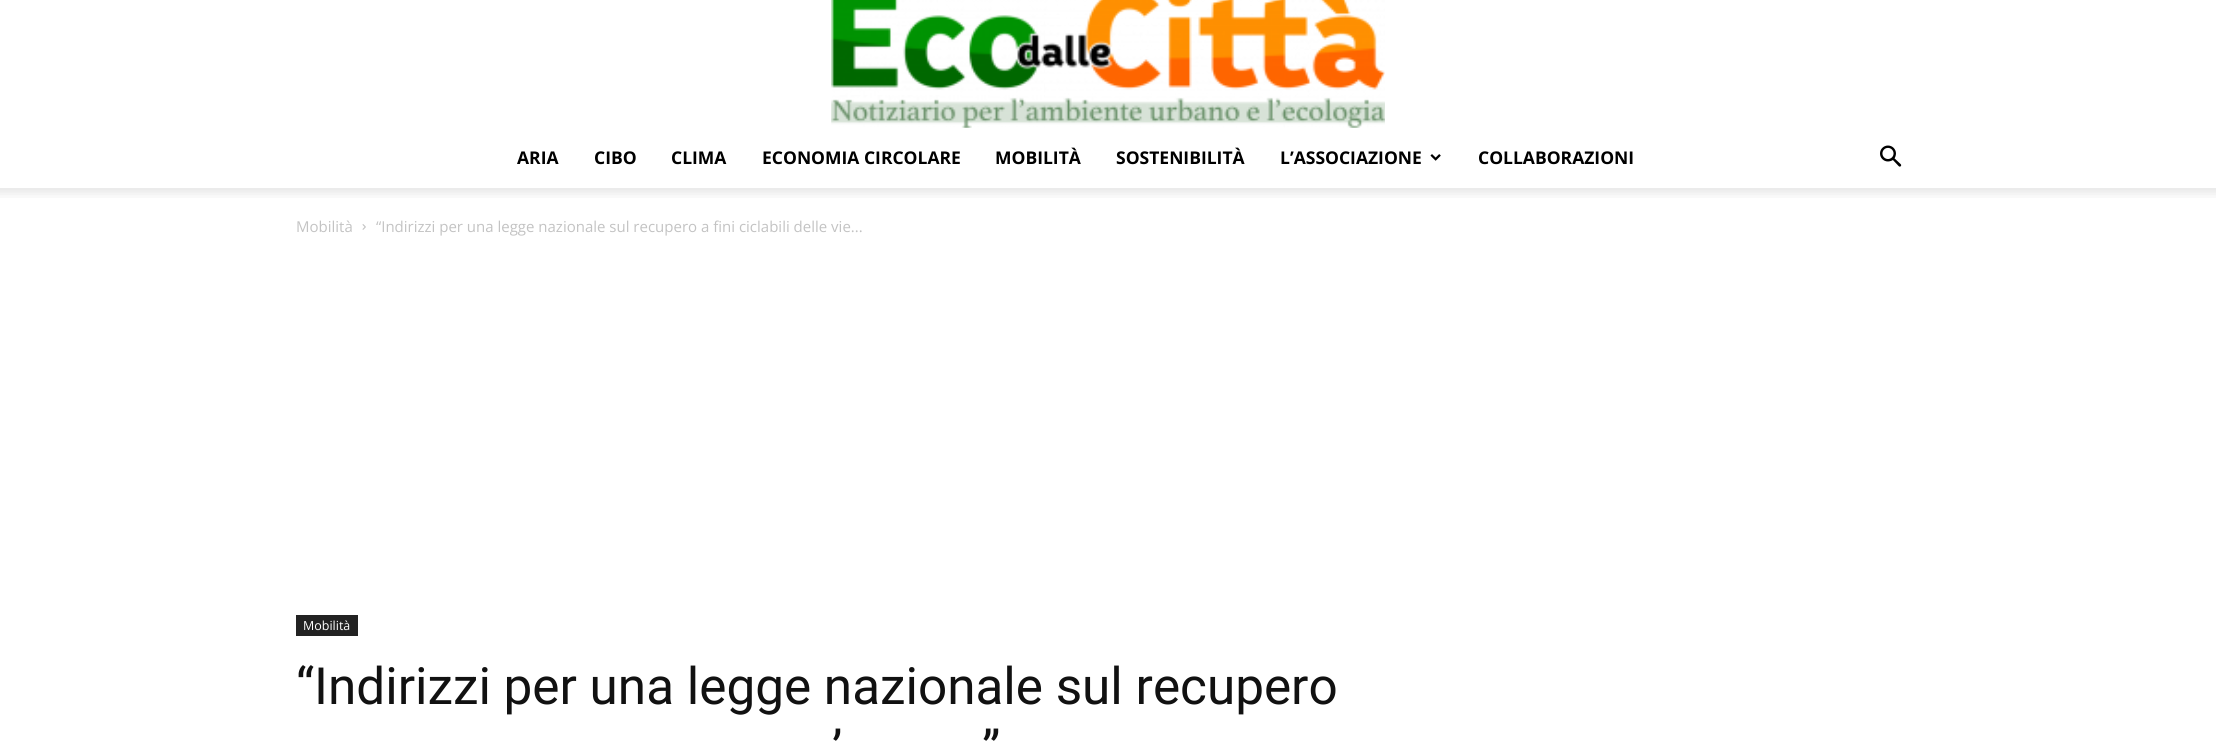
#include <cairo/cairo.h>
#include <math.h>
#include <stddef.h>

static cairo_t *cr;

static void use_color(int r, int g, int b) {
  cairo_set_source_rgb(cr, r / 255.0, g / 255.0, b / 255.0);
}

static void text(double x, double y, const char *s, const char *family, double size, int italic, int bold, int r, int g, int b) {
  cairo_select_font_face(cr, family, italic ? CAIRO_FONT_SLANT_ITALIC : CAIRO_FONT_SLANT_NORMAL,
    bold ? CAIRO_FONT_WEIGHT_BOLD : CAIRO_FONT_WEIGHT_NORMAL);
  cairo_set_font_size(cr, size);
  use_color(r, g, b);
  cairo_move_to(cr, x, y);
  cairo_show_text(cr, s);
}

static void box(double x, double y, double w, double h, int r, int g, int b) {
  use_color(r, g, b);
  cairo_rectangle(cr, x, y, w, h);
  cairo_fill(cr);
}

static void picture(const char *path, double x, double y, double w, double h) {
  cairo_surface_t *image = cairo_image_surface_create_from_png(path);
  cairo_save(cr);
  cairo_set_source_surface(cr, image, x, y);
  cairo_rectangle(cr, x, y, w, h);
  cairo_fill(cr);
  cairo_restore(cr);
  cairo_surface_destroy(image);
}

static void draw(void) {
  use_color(255, 255, 255);
  cairo_paint(cr);
  picture("img_01.png", 831, 0, 554, 128);
  picture("img_02.png", 1430, 154, 11, 7);
  picture("img_03.png", 1880, 145, 22, 22);
  picture("img_04.png", 0, 188, 2216, 10);
  picture("img_05.png", 362, 224, 4, 6);
  box(296, 615, 62, 21, 34, 34, 34);
  text(517, 164, "ARIA", "Open Sans", 17.5, 0, 1, 0, 0, 0);
  text(594, 164, "CIBO", "Open Sans", 17.5, 0, 1, 0, 0, 0);
  text(671, 164, "CLIMA", "Open Sans", 17.5, 0, 1, 0, 0, 0);
  text(762, 164, "ECONOMIA CIRCOLARE", "Open Sans", 17.5, 0, 1, 0, 0, 0);
  text(995, 164, "MOBILITÀ", "Open Sans", 17.5, 0, 1, 0, 0, 0);
  text(1116, 164, "SOSTENIBILITÀ", "Open Sans", 17.5, 0, 1, 0, 0, 0);
  text(1280, 164, "L’ASSOCIAZIONE", "Open Sans", 17.5, 0, 1, 0, 0, 0);
  text(1478, 164, "COLLABORAZIONI", "Open Sans", 17.5, 0, 1, 0, 0, 0);
  text(296, 232, "Mobilità", "Open Sans", 15, 0, 0, 195, 195, 195);
  text(376, 232, "“Indirizzi per una legge nazionale sul recupero a fini ciclabili delle vie...", "Open Sans", 15, 0, 0, 195, 195, 195);
  text(303, 630, "Mobilità", "Open Sans", 12.5, 0, 0, 255, 255, 255);
  text(296, 704, "“Indirizzi per una legge nazionale sul recupero", "Roboto", 51.25, 0, 0, 17, 17, 17);
  text(832, 767, "’", "Roboto", 51.25, 0, 0, 17, 17, 17);
  text(982, 767, "”", "Roboto", 51.25, 0, 0, 17, 17, 17);
}

int main(void) {
  cairo_surface_t *surface = cairo_image_surface_create(CAIRO_FORMAT_RGB24, 2216, 751);
  cr = cairo_create(surface);
  cairo_font_options_t *options = cairo_font_options_create();
  cairo_font_options_set_hint_metrics(options, CAIRO_HINT_METRICS_OFF);
  cairo_font_options_set_hint_style(options, CAIRO_HINT_STYLE_NONE);
  cairo_set_font_options(cr, options);
  cairo_set_miter_limit(cr, 4);
  draw();
  cairo_surface_write_to_png(surface, "out.png");
  cairo_font_options_destroy(options);
  cairo_destroy(cr);
  cairo_surface_destroy(surface);
  return 0;
}
